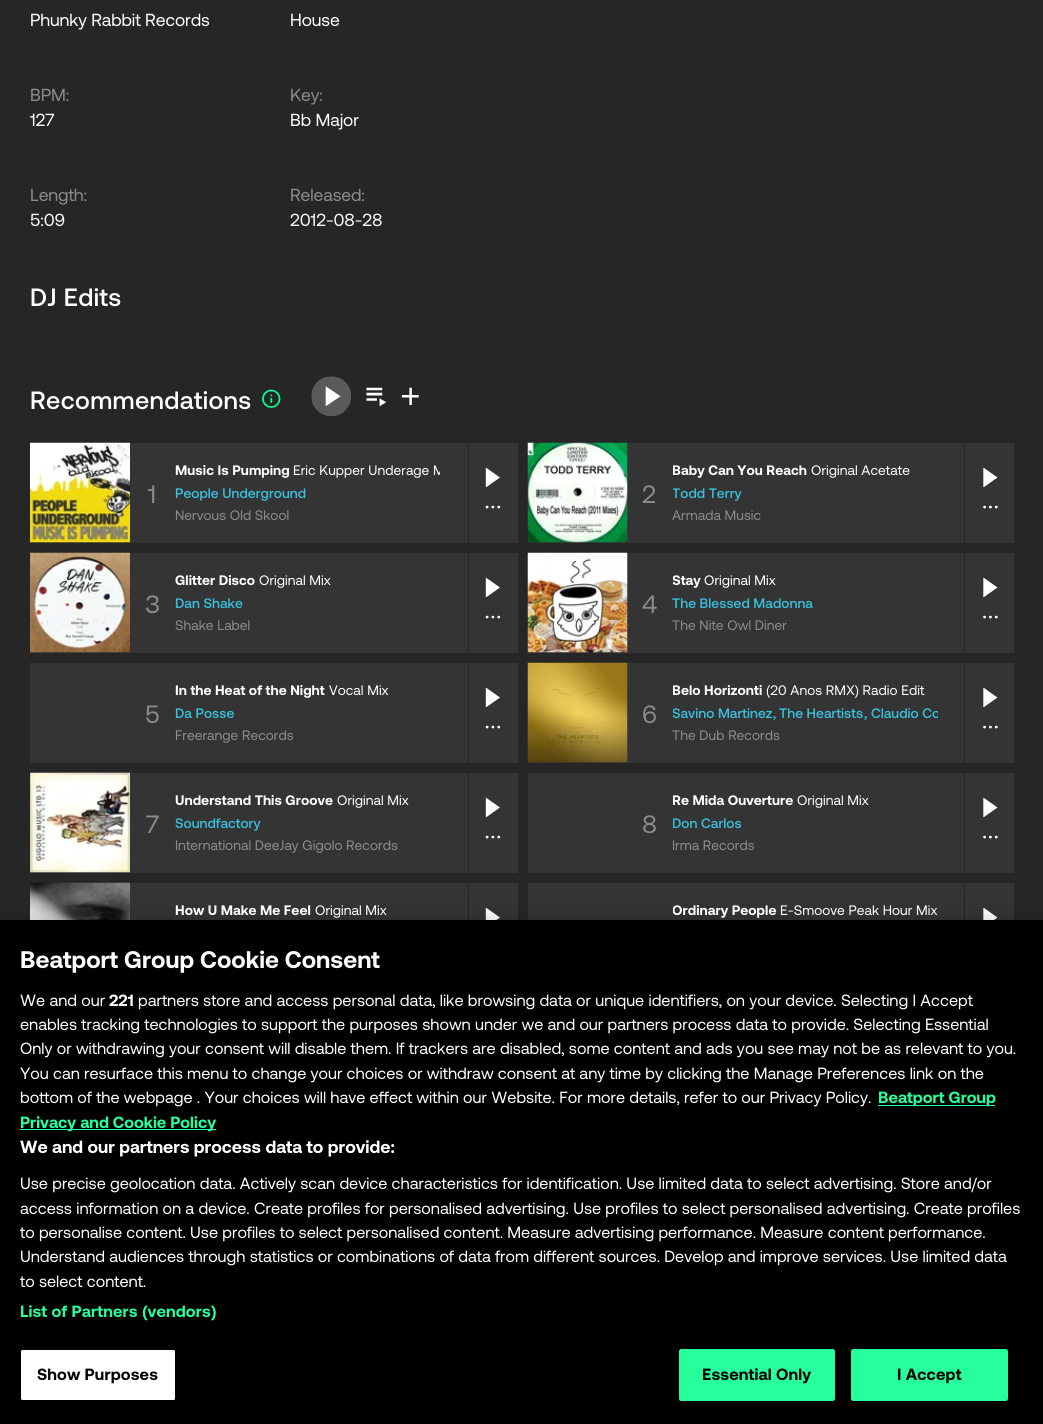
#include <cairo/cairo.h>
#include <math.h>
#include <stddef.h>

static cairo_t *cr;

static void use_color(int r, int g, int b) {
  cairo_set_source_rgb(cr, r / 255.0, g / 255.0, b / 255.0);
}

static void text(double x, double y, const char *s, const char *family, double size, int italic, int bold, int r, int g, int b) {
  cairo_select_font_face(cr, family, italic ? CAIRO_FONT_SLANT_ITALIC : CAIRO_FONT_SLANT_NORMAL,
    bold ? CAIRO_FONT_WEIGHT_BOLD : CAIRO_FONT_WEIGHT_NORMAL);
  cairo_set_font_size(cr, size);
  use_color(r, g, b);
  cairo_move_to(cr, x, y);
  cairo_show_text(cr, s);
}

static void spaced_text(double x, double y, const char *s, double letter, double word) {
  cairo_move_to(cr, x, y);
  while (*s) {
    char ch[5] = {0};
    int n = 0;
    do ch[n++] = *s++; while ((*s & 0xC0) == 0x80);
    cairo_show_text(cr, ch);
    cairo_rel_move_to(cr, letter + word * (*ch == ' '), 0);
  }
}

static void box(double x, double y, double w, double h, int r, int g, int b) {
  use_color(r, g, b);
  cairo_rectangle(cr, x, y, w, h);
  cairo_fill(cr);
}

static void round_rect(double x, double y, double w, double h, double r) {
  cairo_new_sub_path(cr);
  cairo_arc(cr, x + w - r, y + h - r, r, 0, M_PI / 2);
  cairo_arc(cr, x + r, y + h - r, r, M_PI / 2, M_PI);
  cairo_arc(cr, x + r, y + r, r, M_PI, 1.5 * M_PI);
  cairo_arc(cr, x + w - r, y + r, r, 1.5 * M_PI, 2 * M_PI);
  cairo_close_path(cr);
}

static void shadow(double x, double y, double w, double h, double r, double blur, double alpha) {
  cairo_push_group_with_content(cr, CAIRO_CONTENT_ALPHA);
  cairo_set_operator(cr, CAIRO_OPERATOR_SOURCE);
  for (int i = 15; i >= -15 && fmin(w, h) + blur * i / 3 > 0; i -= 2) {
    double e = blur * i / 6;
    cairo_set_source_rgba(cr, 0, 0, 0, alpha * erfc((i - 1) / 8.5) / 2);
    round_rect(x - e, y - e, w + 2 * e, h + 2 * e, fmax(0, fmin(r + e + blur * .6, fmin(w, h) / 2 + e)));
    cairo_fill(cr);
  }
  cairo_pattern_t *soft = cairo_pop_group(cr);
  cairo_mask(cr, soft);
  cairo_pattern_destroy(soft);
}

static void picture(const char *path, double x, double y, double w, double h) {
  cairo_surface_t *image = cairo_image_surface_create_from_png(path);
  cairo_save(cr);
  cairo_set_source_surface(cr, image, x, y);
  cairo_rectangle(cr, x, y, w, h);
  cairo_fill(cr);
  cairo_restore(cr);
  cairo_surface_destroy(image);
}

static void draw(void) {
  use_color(38, 38, 38);
  cairo_paint(cr);
  picture("img_01.png", 262, 389, 19, 19);
  picture("img_02.png", 311, 376, 40, 40);
  picture("img_03.png", 366, 387, 20, 19);
  picture("img_04.png", 401, 387, 18, 18);
  box(30, 443, 488, 100, 52, 52, 52);
  picture("img_05.png", 30, 442, 100, 101);
  box(468, 443, 1, 100, 38, 38, 38);
  picture("img_06.png", 485, 467, 15, 21);
  picture("img_07.png", 485, 505, 16, 4);
  box(528, 443, 486, 100, 52, 52, 52);
  picture("img_08.png", 527, 442, 101, 101);
  box(964, 443, 1, 100, 38, 38, 38);
  picture("img_09.png", 983, 467, 15, 21);
  picture("img_10.png", 983, 505, 15, 4);
  box(30, 553, 488, 100, 52, 52, 52);
  picture("img_11.png", 30, 552, 100, 101);
  box(468, 553, 1, 100, 38, 38, 38);
  picture("img_06.png", 485, 577, 15, 21);
  picture("img_07.png", 485, 615, 16, 4);
  box(528, 553, 486, 100, 52, 52, 52);
  picture("img_12.png", 527, 552, 101, 101);
  box(964, 553, 1, 100, 38, 38, 38);
  picture("img_09.png", 983, 577, 15, 21);
  picture("img_10.png", 983, 615, 15, 4);
  box(30, 663, 488, 100, 52, 52, 52);
  box(468, 663, 1, 100, 38, 38, 38);
  picture("img_06.png", 485, 687, 15, 21);
  picture("img_07.png", 485, 725, 16, 4);
  box(528, 663, 486, 100, 52, 52, 52);
  picture("img_13.png", 527, 662, 101, 101);
  box(964, 663, 1, 100, 38, 38, 38);
  picture("img_09.png", 983, 687, 15, 21);
  picture("img_10.png", 983, 725, 15, 4);
  box(30, 773, 488, 100, 52, 52, 52);
  picture("img_14.png", 30, 772, 100, 101);
  box(468, 773, 1, 100, 38, 38, 38);
  picture("img_06.png", 485, 797, 15, 21);
  picture("img_07.png", 485, 835, 16, 4);
  box(528, 773, 486, 100, 52, 52, 52);
  box(964, 773, 1, 100, 38, 38, 38);
  picture("img_09.png", 983, 797, 15, 21);
  picture("img_10.png", 983, 835, 15, 4);
  box(130, 883, 388, 37, 52, 52, 52);
  picture("img_15.png", 30, 882, 100, 38);
  box(468, 883, 1, 37, 38, 38, 38);
  picture("img_16.png", 485, 907, 15, 13);
  box(528, 883, 486, 37, 52, 52, 52);
  box(964, 883, 1, 37, 38, 38, 38);
  picture("img_17.png", 983, 907, 15, 13);
  use_color(0, 0, 0);
  shadow(0, 920, 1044, 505, 0, 11, 0.2);
  box(0, 920, 1043, 504, 0, 0, 0);
  box(878, 1105, 117, 1, 39, 255, 156);
  box(20, 1129, 196, 1, 39, 255, 156);
  use_color(255, 255, 255);
  round_rect(20.5, 1349.5, 155, 51, 2);
  cairo_fill_preserve(cr);
  use_color(0, 0, 0);
  cairo_set_line_width(cr, 1);
  cairo_stroke(cr);
  use_color(39, 255, 156);
  round_rect(679.5, 1349.5, 155, 51, 2);
  cairo_fill_preserve(cr);
  cairo_stroke(cr);
  round_rect(851.5, 1349.5, 156, 51, 2);
  cairo_fill_preserve(cr);
  cairo_stroke(cr);
  cairo_select_font_face(cr, "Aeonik", CAIRO_FONT_SLANT_NORMAL, CAIRO_FONT_WEIGHT_NORMAL);
  cairo_set_font_size(cr, 17.5);
  use_color(255, 255, 255);
  spaced_text(30, 26, "Phunky Rabbit Records", -0.1, 0);
  spaced_text(290, 26, "House", -0.1, 0);
  use_color(140, 140, 140);
  spaced_text(30, 101, "BPM:", -0.1, 0);
  use_color(255, 255, 255);
  spaced_text(30, 126, "127", -0.1, 0);
  use_color(140, 140, 140);
  spaced_text(290, 101, "Key:", -0.1, 0);
  use_color(255, 255, 255);
  spaced_text(290, 126, "Bb Major", -0.1, 0);
  use_color(140, 140, 140);
  spaced_text(30, 201, "Length:", -0.1, 0);
  use_color(255, 255, 255);
  spaced_text(30, 226, "5:09", -0.1, 0);
  use_color(140, 140, 140);
  spaced_text(290, 201, "Released:", -0.1, 0);
  use_color(255, 255, 255);
  spaced_text(290, 226, "2012-08-28", -0.1, 0);
  cairo_select_font_face(cr, "Aeonik Medium", CAIRO_FONT_SLANT_NORMAL, CAIRO_FONT_WEIGHT_NORMAL);
  cairo_set_font_size(cr, 25);
  spaced_text(30, 306, "DJ Edits", 0.4, 0);
  spaced_text(30, 409, "Recommendations", 0.4, 0);
  text(148, 503, "1", "Aeonik", 25, 0, 0, 140, 140, 140);
  cairo_select_font_face(cr, "Aeonik", CAIRO_FONT_SLANT_NORMAL, CAIRO_FONT_WEIGHT_BOLD);
  cairo_set_font_size(cr, 13.75);
  use_color(255, 255, 255);
  spaced_text(175, 475, "Music Is Pumping", 0.05, 0);
  cairo_save(cr);
  cairo_rectangle(cr, 175, 458, 265, 25);
  cairo_clip(cr);
  cairo_select_font_face(cr, "Aeonik", CAIRO_FONT_SLANT_NORMAL, CAIRO_FONT_WEIGHT_NORMAL);
  spaced_text(293, 475, "Eric Kupper Underage M", 0.05, 0);
  cairo_restore(cr);
  cairo_select_font_face(cr, "Aeonik Medium", CAIRO_FONT_SLANT_NORMAL, CAIRO_FONT_WEIGHT_NORMAL);
  use_color(57, 192, 222);
  spaced_text(175, 498, "People Underground", 0.05, 0);
  cairo_select_font_face(cr, "Aeonik", CAIRO_FONT_SLANT_NORMAL, CAIRO_FONT_WEIGHT_NORMAL);
  use_color(140, 140, 140);
  spaced_text(175, 520, "Nervous Old Skool", 0.05, 0);
  text(642, 503, "2", "Aeonik", 25, 0, 0, 140, 140, 140);
  cairo_save(cr);
  cairo_rectangle(cr, 673, 458, 237, 25);
  cairo_clip(cr);
  cairo_select_font_face(cr, "Aeonik", CAIRO_FONT_SLANT_NORMAL, CAIRO_FONT_WEIGHT_BOLD);
  cairo_set_font_size(cr, 13.75);
  use_color(255, 255, 255);
  spaced_text(672, 475, "Baby Can You Reach", 0.05, 0);
  cairo_restore(cr);
  cairo_set_font_size(cr, 13.75);
  use_color(255, 255, 255);
  spaced_text(811, 475, "Original Acetate", 0.05, 0);
  cairo_save(cr);
  cairo_rectangle(cr, 673, 483, 68, 20);
  cairo_clip(cr);
  cairo_select_font_face(cr, "Aeonik Medium", CAIRO_FONT_SLANT_NORMAL, CAIRO_FONT_WEIGHT_NORMAL);
  use_color(57, 192, 222);
  spaced_text(672, 498, "Todd Terry", 0.05, 0);
  cairo_restore(cr);
  use_color(140, 140, 140);
  spaced_text(672, 520, "Armada Music", 0.05, 0);
  text(145, 613, "3", "Aeonik", 25, 0, 0, 140, 140, 140);
  cairo_select_font_face(cr, "Aeonik", CAIRO_FONT_SLANT_NORMAL, CAIRO_FONT_WEIGHT_BOLD);
  cairo_set_font_size(cr, 13.75);
  use_color(255, 255, 255);
  spaced_text(175, 585, "Glitter Disco", 0.05, 0);
  cairo_select_font_face(cr, "Aeonik", CAIRO_FONT_SLANT_NORMAL, CAIRO_FONT_WEIGHT_NORMAL);
  spaced_text(259, 585, "Original Mix", 0.05, 0);
  cairo_select_font_face(cr, "Aeonik Medium", CAIRO_FONT_SLANT_NORMAL, CAIRO_FONT_WEIGHT_NORMAL);
  use_color(57, 192, 222);
  spaced_text(175, 608, "Dan Shake", 0.05, 0);
  cairo_select_font_face(cr, "Aeonik", CAIRO_FONT_SLANT_NORMAL, CAIRO_FONT_WEIGHT_NORMAL);
  use_color(140, 140, 140);
  spaced_text(175, 630, "Shake Label", 0.05, 0);
  text(642, 613, "4", "Aeonik", 25, 0, 0, 140, 140, 140);
  cairo_save(cr);
  cairo_rectangle(cr, 673, 568, 103, 25);
  cairo_clip(cr);
  cairo_select_font_face(cr, "Aeonik", CAIRO_FONT_SLANT_NORMAL, CAIRO_FONT_WEIGHT_BOLD);
  cairo_set_font_size(cr, 13.75);
  use_color(255, 255, 255);
  spaced_text(672, 585, "Stay", 0.05, 0);
  cairo_restore(cr);
  cairo_set_font_size(cr, 13.75);
  use_color(255, 255, 255);
  spaced_text(704, 585, "Original Mix", 0.05, 0);
  cairo_select_font_face(cr, "Aeonik Medium", CAIRO_FONT_SLANT_NORMAL, CAIRO_FONT_WEIGHT_NORMAL);
  use_color(57, 192, 222);
  spaced_text(672, 608, "The Blessed Madonna", 0.05, 0);
  cairo_select_font_face(cr, "Aeonik", CAIRO_FONT_SLANT_NORMAL, CAIRO_FONT_WEIGHT_NORMAL);
  use_color(140, 140, 140);
  spaced_text(672, 630, "The Nite Owl Diner", 0.05, 0);
  text(145, 723, "5", "Aeonik", 25, 0, 0, 140, 140, 140);
  cairo_select_font_face(cr, "Aeonik", CAIRO_FONT_SLANT_NORMAL, CAIRO_FONT_WEIGHT_BOLD);
  cairo_set_font_size(cr, 13.75);
  use_color(255, 255, 255);
  spaced_text(175, 695, "In the Heat of the Night", 0.05, 0);
  cairo_select_font_face(cr, "Aeonik", CAIRO_FONT_SLANT_NORMAL, CAIRO_FONT_WEIGHT_NORMAL);
  spaced_text(329, 695, "Vocal Mix", 0.05, 0);
  cairo_select_font_face(cr, "Aeonik Medium", CAIRO_FONT_SLANT_NORMAL, CAIRO_FONT_WEIGHT_NORMAL);
  use_color(57, 192, 222);
  spaced_text(175, 718, "Da Posse", 0.05, 0);
  cairo_select_font_face(cr, "Aeonik", CAIRO_FONT_SLANT_NORMAL, CAIRO_FONT_WEIGHT_NORMAL);
  use_color(140, 140, 140);
  spaced_text(175, 740, "Freerange Records", 0.05, 0);
  text(642, 723, "6", "Aeonik", 25, 0, 0, 140, 140, 140);
  cairo_save(cr);
  cairo_rectangle(cr, 673, 678, 252, 25);
  cairo_clip(cr);
  cairo_select_font_face(cr, "Aeonik", CAIRO_FONT_SLANT_NORMAL, CAIRO_FONT_WEIGHT_BOLD);
  cairo_set_font_size(cr, 13.75);
  use_color(255, 255, 255);
  spaced_text(672, 695, "Belo Horizonti", 0.05, 0);
  cairo_restore(cr);
  cairo_set_font_size(cr, 13.75);
  use_color(255, 255, 255);
  spaced_text(766, 695, "(20 Anos RMX) Radio Edit", 0.05, 0);
  cairo_save(cr);
  cairo_rectangle(cr, 673, 703, 265, 20);
  cairo_clip(cr);
  cairo_select_font_face(cr, "Aeonik Medium", CAIRO_FONT_SLANT_NORMAL, CAIRO_FONT_WEIGHT_NORMAL);
  use_color(57, 192, 222);
  spaced_text(672, 718, "Savino Martinez", 0.05, 0);
  cairo_restore(cr);
  cairo_select_font_face(cr, "Aeonik Medium", CAIRO_FONT_SLANT_NORMAL, CAIRO_FONT_WEIGHT_NORMAL);
  use_color(57, 192, 222);
  spaced_text(773, 718, ",", 0.05, 0);
  spaced_text(779, 718, "The Heartists", 0.05, 0);
  spaced_text(864, 718, ",", 0.05, 0);
  cairo_save(cr);
  cairo_rectangle(cr, 673, 703, 265, 20);
  cairo_clip(cr);
  spaced_text(871, 718, "Claudio Co", 0.05, 0);
  cairo_restore(cr);
  cairo_select_font_face(cr, "Aeonik", CAIRO_FONT_SLANT_NORMAL, CAIRO_FONT_WEIGHT_NORMAL);
  use_color(140, 140, 140);
  spaced_text(672, 740, "The Dub Records", 0.05, 0);
  text(146, 833, "7", "Aeonik", 25, 0, 0, 140, 140, 140);
  cairo_select_font_face(cr, "Aeonik", CAIRO_FONT_SLANT_NORMAL, CAIRO_FONT_WEIGHT_BOLD);
  cairo_set_font_size(cr, 13.75);
  use_color(255, 255, 255);
  spaced_text(175, 805, "Understand This Groove", 0.05, 0);
  cairo_select_font_face(cr, "Aeonik", CAIRO_FONT_SLANT_NORMAL, CAIRO_FONT_WEIGHT_NORMAL);
  spaced_text(337, 805, "Original Mix", 0.05, 0);
  cairo_select_font_face(cr, "Aeonik Medium", CAIRO_FONT_SLANT_NORMAL, CAIRO_FONT_WEIGHT_NORMAL);
  use_color(57, 192, 222);
  spaced_text(175, 828, "Soundfactory", 0.05, 0);
  cairo_select_font_face(cr, "Aeonik", CAIRO_FONT_SLANT_NORMAL, CAIRO_FONT_WEIGHT_NORMAL);
  use_color(140, 140, 140);
  spaced_text(175, 850, "International DeeJay Gigolo Records", 0.05, 0);
  text(642, 833, "8", "Aeonik", 25, 0, 0, 140, 140, 140);
  cairo_save(cr);
  cairo_rectangle(cr, 673, 788, 196, 25);
  cairo_clip(cr);
  cairo_select_font_face(cr, "Aeonik", CAIRO_FONT_SLANT_NORMAL, CAIRO_FONT_WEIGHT_BOLD);
  cairo_set_font_size(cr, 13.75);
  use_color(255, 255, 255);
  spaced_text(672, 805, "Re Mida Ouverture", 0.05, 0);
  cairo_restore(cr);
  cairo_set_font_size(cr, 13.75);
  use_color(255, 255, 255);
  spaced_text(797, 805, "Original Mix", 0.05, 0);
  cairo_save(cr);
  cairo_rectangle(cr, 673, 813, 68, 20);
  cairo_clip(cr);
  cairo_select_font_face(cr, "Aeonik Medium", CAIRO_FONT_SLANT_NORMAL, CAIRO_FONT_WEIGHT_NORMAL);
  use_color(57, 192, 222);
  spaced_text(672, 828, "Don Carlos", 0.05, 0);
  cairo_restore(cr);
  cairo_save(cr);
  cairo_rectangle(cr, 673, 833, 82, 25);
  cairo_clip(cr);
  use_color(140, 140, 140);
  spaced_text(672, 850, "Irma Records", 0.05, 0);
  cairo_restore(cr);
  cairo_select_font_face(cr, "Aeonik", CAIRO_FONT_SLANT_NORMAL, CAIRO_FONT_WEIGHT_BOLD);
  spaced_text(175, 915, "How U Make Me Feel", 0.05, 0);
  cairo_select_font_face(cr, "Aeonik", CAIRO_FONT_SLANT_NORMAL, CAIRO_FONT_WEIGHT_NORMAL);
  spaced_text(315, 915, "Original Mix", 0.05, 0);
  cairo_save(cr);
  cairo_rectangle(cr, 673, 898, 265, 25);
  cairo_clip(cr);
  cairo_select_font_face(cr, "Aeonik", CAIRO_FONT_SLANT_NORMAL, CAIRO_FONT_WEIGHT_BOLD);
  spaced_text(672, 915, "Ordinary People", 0.05, 0);
  cairo_restore(cr);
  spaced_text(780, 915, "E-Smoove Peak Hour Mix", 0.05, 0);
  text(20, 968, "Beatport Group Cookie Consent", "Aeonik", 24, 0, 1, 255, 255, 255);
  text(20, 1006, "We and our", "Aeonik", 16.25, 0, 0, 255, 255, 255);
  text(109, 1006, "221", "Aeonik", 16.25, 0, 1, 255, 255, 255);
  text(138, 1006, "partners store and access personal data, like browsing data or unique identifiers, on your device. Selecting I Accept", "Aeonik", 16.25, 0, 0, 255, 255, 255);
  text(20, 1030, "enables tracking technologies to support the purposes shown under we and our partners process data to provide. Selecting Essential", "Aeonik", 16.25, 0, 0, 255, 255, 255);
  text(20, 1054, "Only or withdrawing your consent will disable them. If trackers are disabled, some content and ads you see may not be as relevant to you.", "Aeonik", 16.25, 0, 0, 255, 255, 255);
  text(20, 1079, "You can resurface this menu to change your choices or withdraw consent at any time by clicking the Manage Preferences link on the", "Aeonik", 16.25, 0, 0, 255, 255, 255);
  text(20, 1103, "bottom of the webpage . Your choices will have effect within our Website. For more details, refer to our Privacy Policy.", "Aeonik", 16.25, 0, 0, 255, 255, 255);
  text(878, 1103, "Beatport Group", "Aeonik", 16.25, 0, 1, 39, 255, 156);
  text(20, 1128, "Privacy and Cookie Policy", "Aeonik", 16.25, 0, 1, 39, 255, 156);
  text(20, 1153, "We and our partners process data to provide:", "Aeonik", 17.6, 0, 1, 255, 255, 255);
  text(20, 1189, "Use precise geolocation data. Actively scan device characteristics for identification. Use limited data to select advertising. Store and/or", "Aeonik", 16.25, 0, 0, 255, 255, 255);
  text(20, 1214, "access information on a device. Create profiles for personalised advertising. Use profiles to select personalised advertising. Create profiles", "Aeonik", 16.25, 0, 0, 255, 255, 255);
  text(20, 1238, "to personalise content. Use profiles to select personalised content. Measure advertising performance. Measure content performance.", "Aeonik", 16.25, 0, 0, 255, 255, 255);
  text(20, 1262, "Understand audiences through statistics or combinations of data from different sources. Develop and improve services. Use limited data", "Aeonik", 16.25, 0, 0, 255, 255, 255);
  text(20, 1287, "to select content.", "Aeonik", 16.25, 0, 0, 255, 255, 255);
  cairo_select_font_face(cr, "Aeonik", CAIRO_FONT_SLANT_NORMAL, CAIRO_FONT_WEIGHT_BOLD);
  use_color(39, 255, 156);
  spaced_text(20, 1317, "List of Partners (vendors)", 0.15, 0);
  use_color(0, 0, 0);
  spaced_text(37, 1380, "Show Purposes", 0.15, 0);
  spaced_text(702, 1380, "Essential Only", 0.15, 0);
  spaced_text(897, 1380, "I Accept", 0.15, 0);
}

int main(void) {
  cairo_surface_t *surface = cairo_image_surface_create(CAIRO_FORMAT_RGB24, 1043, 1424);
  cr = cairo_create(surface);
  cairo_font_options_t *options = cairo_font_options_create();
  cairo_font_options_set_hint_metrics(options, CAIRO_HINT_METRICS_OFF);
  cairo_font_options_set_hint_style(options, CAIRO_HINT_STYLE_NONE);
  cairo_set_font_options(cr, options);
  cairo_set_miter_limit(cr, 4);
  draw();
  cairo_surface_write_to_png(surface, "out.png");
  cairo_font_options_destroy(options);
  cairo_destroy(cr);
  cairo_surface_destroy(surface);
  return 0;
}
